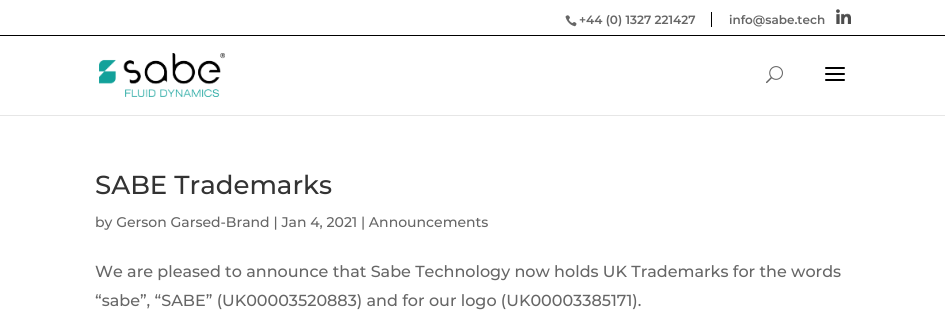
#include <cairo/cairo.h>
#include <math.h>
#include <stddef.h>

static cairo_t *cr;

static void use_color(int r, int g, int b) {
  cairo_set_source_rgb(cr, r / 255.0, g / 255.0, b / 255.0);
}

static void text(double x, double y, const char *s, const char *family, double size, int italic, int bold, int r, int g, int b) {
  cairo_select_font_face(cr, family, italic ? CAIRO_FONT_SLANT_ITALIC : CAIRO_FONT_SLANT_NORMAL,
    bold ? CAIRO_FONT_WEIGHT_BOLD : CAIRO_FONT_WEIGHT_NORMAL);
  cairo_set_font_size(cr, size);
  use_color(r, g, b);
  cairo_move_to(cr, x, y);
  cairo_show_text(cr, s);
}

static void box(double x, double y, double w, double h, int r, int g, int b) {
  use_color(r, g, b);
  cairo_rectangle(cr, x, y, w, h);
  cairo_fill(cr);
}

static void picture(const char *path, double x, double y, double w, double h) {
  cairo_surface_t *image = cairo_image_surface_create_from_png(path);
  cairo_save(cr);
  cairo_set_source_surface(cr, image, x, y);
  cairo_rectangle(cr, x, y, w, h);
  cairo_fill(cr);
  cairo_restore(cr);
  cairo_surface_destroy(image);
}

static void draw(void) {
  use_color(255, 255, 255);
  cairo_paint(cr);
  box(0, 35, 945, 1, 0, 0, 0);
  picture("img_01.png", 565, 15, 12, 12);
  box(711, 12, 1, 15, 0, 0, 0);
  picture("img_02.png", 836, 9, 15, 15);
  box(0, 115, 945, 1, 230, 230, 230);
  picture("img_03.png", 99, 53, 126, 44);
  picture("img_04.png", 766, 66, 17, 18);
  picture("img_05.png", 825, 67, 20, 14);
  text(579, 24, "+44 (0) 1327 221427", "Montserrat SemiBold", 12, 0, 0, 102, 102, 102);
  text(729, 24, "info@sabe.tech", "Montserrat SemiBold", 12, 0, 0, 102, 102, 102);
  text(95, 194, "SABE Trademarks", "Montserrat Medium", 26, 0, 0, 51, 51, 51);
  text(95, 227, "by Gerson Garsed-Brand | Jan 4, 2021 | Announcements", "Montserrat Medium", 14, 0, 0, 102, 102, 102);
  text(95, 277, "We are pleased to announce that Sabe Technology now holds UK Trademarks for the words", "Montserrat Medium", 16, 0, 0, 102, 102, 102);
  text(95, 306, "“sabe”, “SABE” (UK00003520883) and for our logo (UK00003385171).", "Montserrat Medium", 16, 0, 0, 102, 102, 102);
}

int main(void) {
  cairo_surface_t *surface = cairo_image_surface_create(CAIRO_FORMAT_RGB24, 945, 321);
  cr = cairo_create(surface);
  cairo_font_options_t *options = cairo_font_options_create();
  cairo_font_options_set_hint_metrics(options, CAIRO_HINT_METRICS_OFF);
  cairo_font_options_set_hint_style(options, CAIRO_HINT_STYLE_NONE);
  cairo_set_font_options(cr, options);
  cairo_set_miter_limit(cr, 4);
  draw();
  cairo_surface_write_to_png(surface, "out.png");
  cairo_font_options_destroy(options);
  cairo_destroy(cr);
  cairo_surface_destroy(surface);
  return 0;
}
